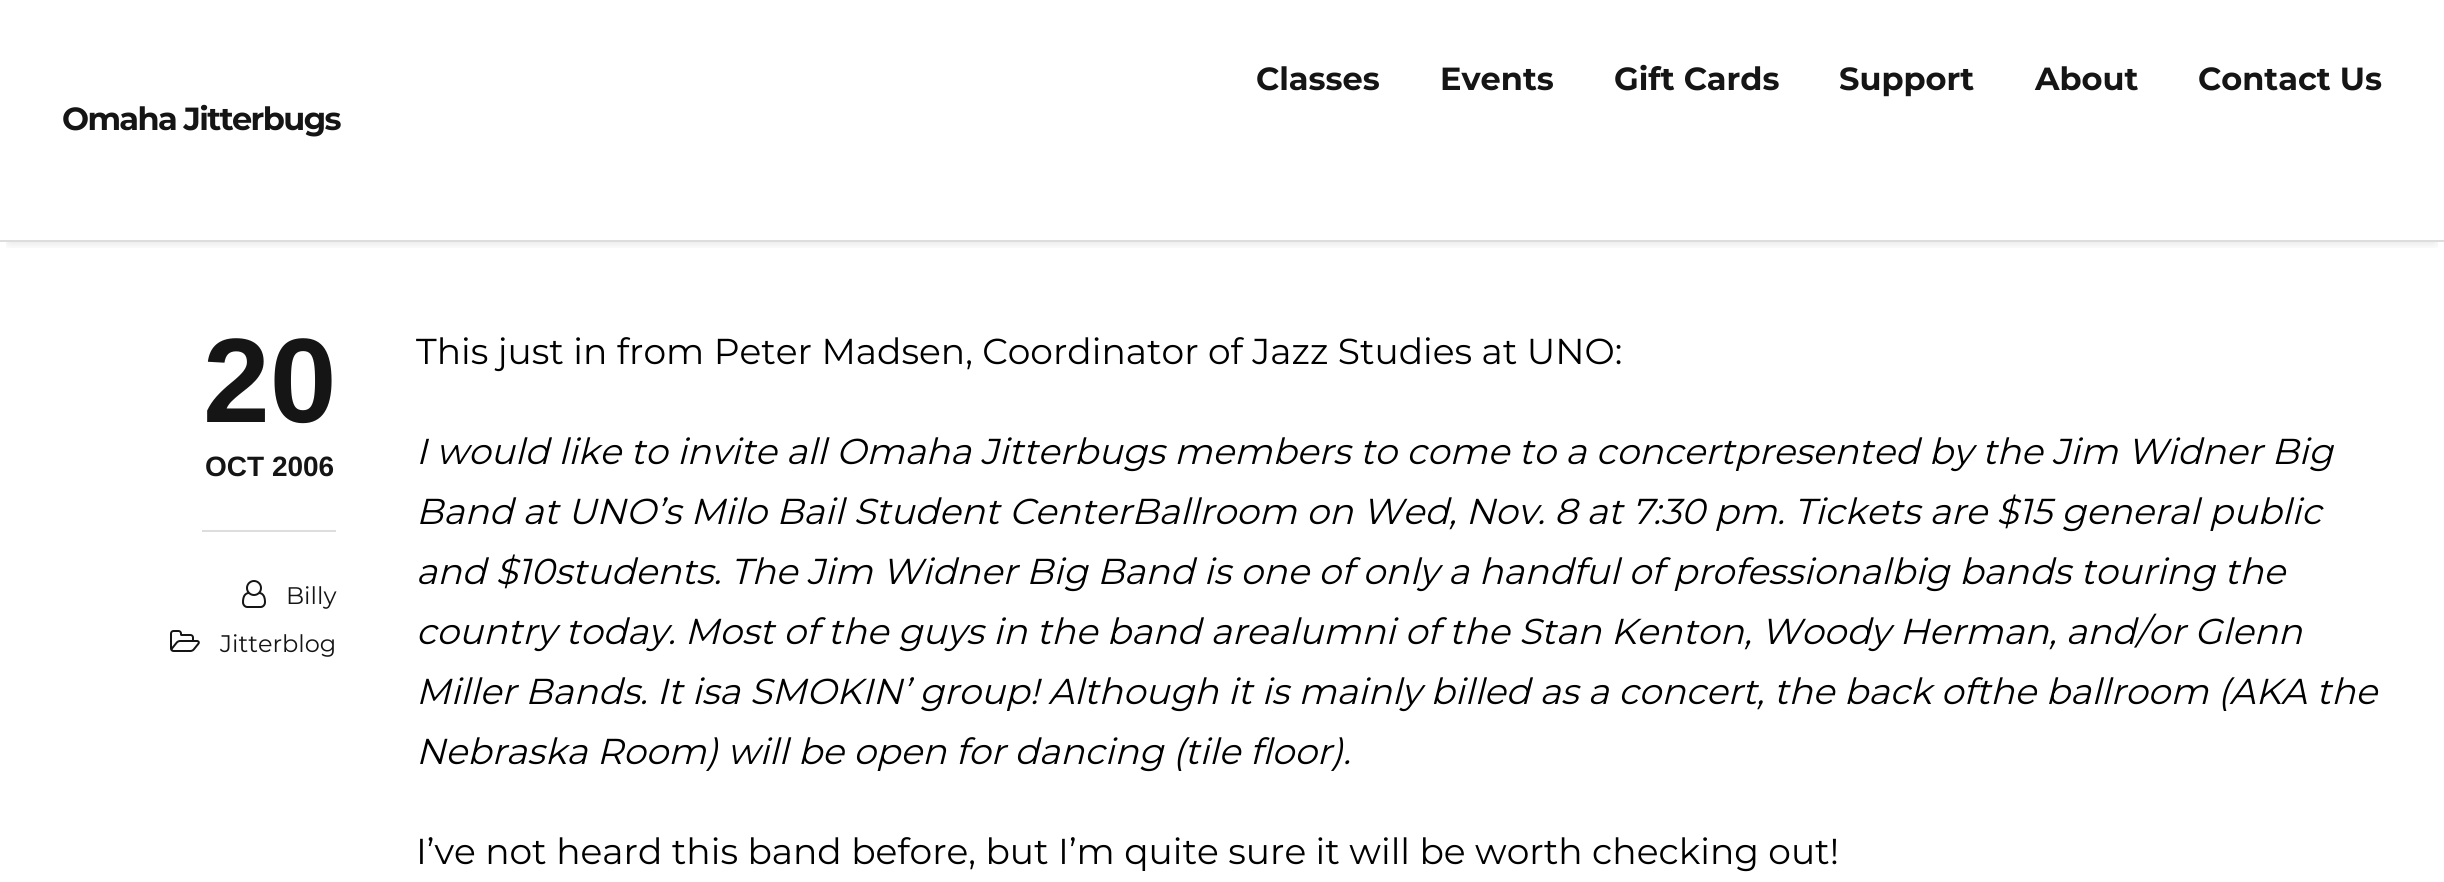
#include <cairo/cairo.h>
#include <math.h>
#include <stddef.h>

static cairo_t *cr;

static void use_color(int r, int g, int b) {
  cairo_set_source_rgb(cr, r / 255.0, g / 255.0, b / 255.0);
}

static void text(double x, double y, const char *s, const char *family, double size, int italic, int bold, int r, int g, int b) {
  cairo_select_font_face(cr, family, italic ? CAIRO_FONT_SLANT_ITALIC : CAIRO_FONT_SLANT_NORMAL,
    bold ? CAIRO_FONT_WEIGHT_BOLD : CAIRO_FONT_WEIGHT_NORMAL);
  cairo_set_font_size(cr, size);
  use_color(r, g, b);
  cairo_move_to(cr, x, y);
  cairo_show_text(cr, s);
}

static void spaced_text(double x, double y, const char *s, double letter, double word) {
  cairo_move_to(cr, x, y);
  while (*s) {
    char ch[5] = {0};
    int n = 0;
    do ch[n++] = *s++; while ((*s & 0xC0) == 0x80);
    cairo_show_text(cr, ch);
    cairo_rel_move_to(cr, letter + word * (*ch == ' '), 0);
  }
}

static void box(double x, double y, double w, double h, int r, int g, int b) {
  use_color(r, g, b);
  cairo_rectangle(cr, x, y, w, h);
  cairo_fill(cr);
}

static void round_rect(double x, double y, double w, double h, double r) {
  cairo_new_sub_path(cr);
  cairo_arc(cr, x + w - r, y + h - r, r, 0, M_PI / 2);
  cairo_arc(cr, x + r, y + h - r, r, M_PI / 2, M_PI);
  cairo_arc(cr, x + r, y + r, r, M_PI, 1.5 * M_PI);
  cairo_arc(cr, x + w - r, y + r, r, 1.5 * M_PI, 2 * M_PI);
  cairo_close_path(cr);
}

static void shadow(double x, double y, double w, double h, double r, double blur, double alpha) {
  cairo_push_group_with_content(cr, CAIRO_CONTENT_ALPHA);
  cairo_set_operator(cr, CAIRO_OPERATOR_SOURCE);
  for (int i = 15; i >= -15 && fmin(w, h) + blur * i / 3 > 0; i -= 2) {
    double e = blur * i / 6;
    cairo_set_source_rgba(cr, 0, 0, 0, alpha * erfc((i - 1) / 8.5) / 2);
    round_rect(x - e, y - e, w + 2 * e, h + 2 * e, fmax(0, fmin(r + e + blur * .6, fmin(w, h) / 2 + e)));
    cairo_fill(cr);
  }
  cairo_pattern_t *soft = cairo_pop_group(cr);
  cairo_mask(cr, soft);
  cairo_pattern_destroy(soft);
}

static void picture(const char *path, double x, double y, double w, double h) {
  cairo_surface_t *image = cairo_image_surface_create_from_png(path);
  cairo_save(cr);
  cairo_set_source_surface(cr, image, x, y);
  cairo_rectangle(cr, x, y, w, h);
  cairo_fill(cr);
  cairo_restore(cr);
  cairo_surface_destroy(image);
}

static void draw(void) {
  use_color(255, 255, 255);
  cairo_paint(cr);
  cairo_save(cr);
  cairo_rectangle(cr, 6, 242, 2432, 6);
  cairo_clip(cr);
  use_color(0, 0, 0);
  shadow(8, 18, 2428, 226, 0, 5, 0.1);
  cairo_restore(cr);
  box(0, 240, 2444, 2, 221, 221, 221);
  box(202, 530, 134, 2, 221, 221, 221);
  picture("img_01.png", 242, 580, 24, 28);
  picture("img_02.png", 170, 630, 30, 22);
  text(1256, 90, "Classes", "Montserrat", 32, 0, 1, 21, 21, 21);
  text(1440, 90, "Events", "Montserrat", 32, 0, 1, 21, 21, 21);
  text(1614, 90, "Gift Cards", "Montserrat", 32, 0, 1, 21, 21, 21);
  text(1839, 90, "Support", "Montserrat", 32, 0, 1, 21, 21, 21);
  text(2035, 90, "About", "Montserrat", 32, 0, 1, 21, 21, 21);
  text(2198, 90, "Contact Us", "Montserrat", 32, 0, 1, 21, 21, 21);
  spaced_text(62, 130, "Omaha Jitterbugs", -1.6, 0);
  text(203, 422, "20", "Liberation Sans", 120, 0, 1, 21, 21, 21);
  text(205, 476, "OCT 2006", "Liberation Sans", 28, 0, 1, 21, 21, 21);
  text(286, 604, "Billy", "Montserrat", 24, 0, 0, 21, 21, 21);
  text(220, 652, "Jitterblog", "Montserrat", 24, 0, 0, 21, 21, 21);
  text(416, 364, "This just in from Peter Madsen, Coordinator of Jazz Studies at UNO:", "Montserrat", 36, 0, 0, 0, 0, 0);
  text(416, 464, "I would like to invite all Omaha Jitterbugs members to come to a concertpresented by the Jim Widner Big", "Montserrat", 36, 1, 0, 0, 0, 0);
  text(416, 524, "Band at UNO’s Milo Bail Student CenterBallroom on Wed, Nov. 8 at 7:30 pm. Tickets are $15 general public", "Montserrat", 36, 1, 0, 0, 0, 0);
  text(416, 584, "and $10students. The Jim Widner Big Band is one of only a handful of professionalbig bands touring the", "Montserrat", 36, 1, 0, 0, 0, 0);
  text(416, 644, "country today. Most of the guys in the band arealumni of the Stan Kenton, Woody Herman, and/or Glenn", "Montserrat", 36, 1, 0, 0, 0, 0);
  text(416, 704, "Miller Bands. It isa SMOKIN’ group! Although it is mainly billed as a concert, the back ofthe ballroom (AKA the", "Montserrat", 36, 1, 0, 0, 0, 0);
  text(416, 764, "Nebraska Room) will be open for dancing (tile floor).", "Montserrat", 36, 1, 0, 0, 0, 0);
  text(416, 864, "I’ve not heard this band before, but I’m quite sure it will be worth checking out!", "Montserrat", 36, 0, 0, 0, 0, 0);
}

int main(void) {
  cairo_surface_t *surface = cairo_image_surface_create(CAIRO_FORMAT_RGB24, 2444, 882);
  cr = cairo_create(surface);
  cairo_font_options_t *options = cairo_font_options_create();
  cairo_font_options_set_hint_metrics(options, CAIRO_HINT_METRICS_OFF);
  cairo_font_options_set_hint_style(options, CAIRO_HINT_STYLE_NONE);
  cairo_set_font_options(cr, options);
  cairo_set_miter_limit(cr, 4);
  draw();
  cairo_surface_write_to_png(surface, "out.png");
  cairo_font_options_destroy(options);
  cairo_destroy(cr);
  cairo_surface_destroy(surface);
  return 0;
}
